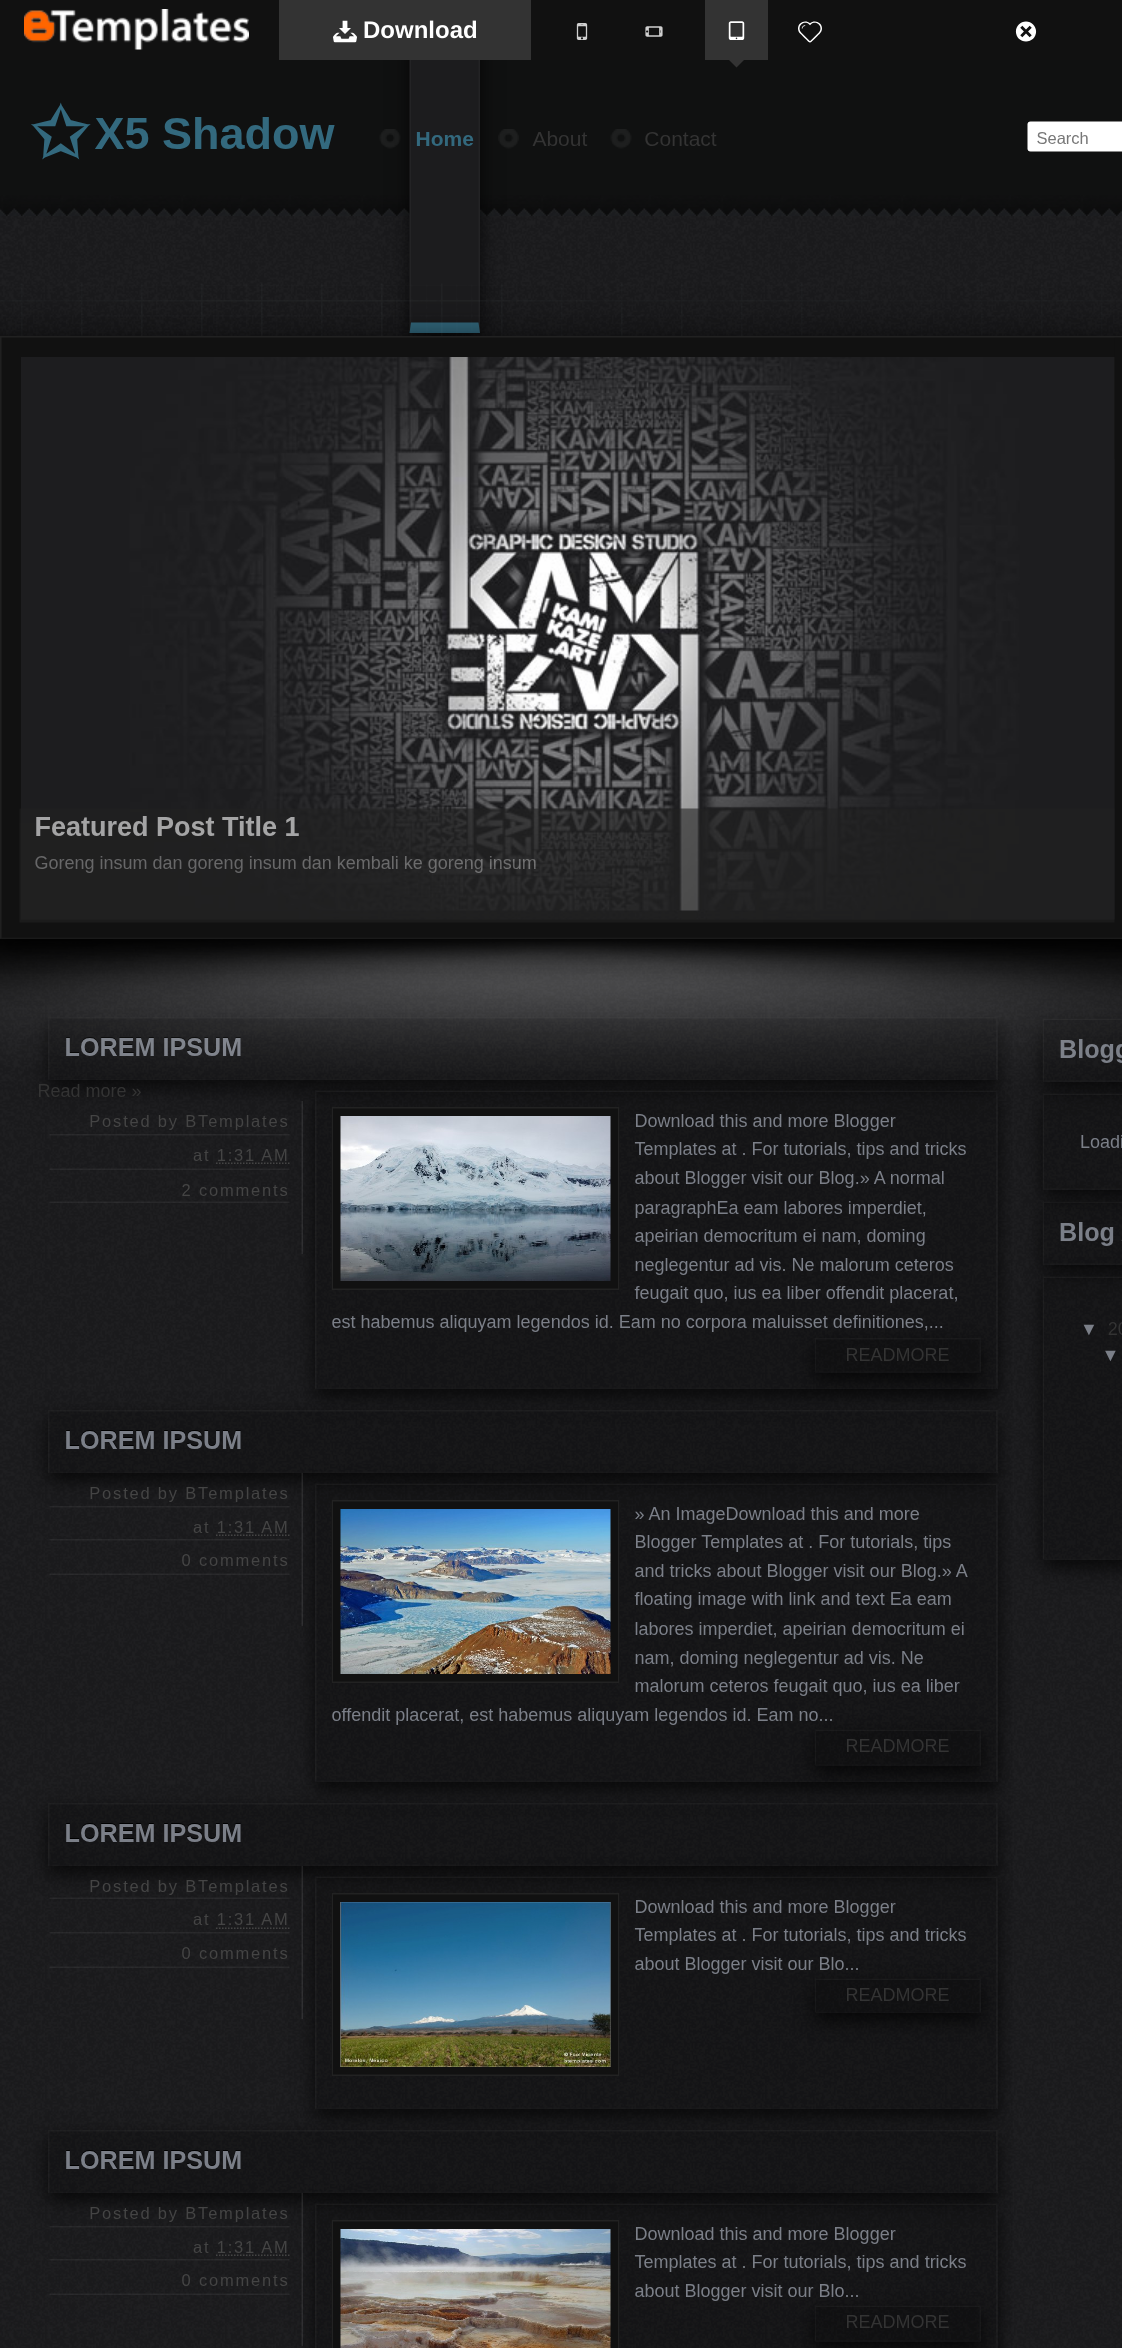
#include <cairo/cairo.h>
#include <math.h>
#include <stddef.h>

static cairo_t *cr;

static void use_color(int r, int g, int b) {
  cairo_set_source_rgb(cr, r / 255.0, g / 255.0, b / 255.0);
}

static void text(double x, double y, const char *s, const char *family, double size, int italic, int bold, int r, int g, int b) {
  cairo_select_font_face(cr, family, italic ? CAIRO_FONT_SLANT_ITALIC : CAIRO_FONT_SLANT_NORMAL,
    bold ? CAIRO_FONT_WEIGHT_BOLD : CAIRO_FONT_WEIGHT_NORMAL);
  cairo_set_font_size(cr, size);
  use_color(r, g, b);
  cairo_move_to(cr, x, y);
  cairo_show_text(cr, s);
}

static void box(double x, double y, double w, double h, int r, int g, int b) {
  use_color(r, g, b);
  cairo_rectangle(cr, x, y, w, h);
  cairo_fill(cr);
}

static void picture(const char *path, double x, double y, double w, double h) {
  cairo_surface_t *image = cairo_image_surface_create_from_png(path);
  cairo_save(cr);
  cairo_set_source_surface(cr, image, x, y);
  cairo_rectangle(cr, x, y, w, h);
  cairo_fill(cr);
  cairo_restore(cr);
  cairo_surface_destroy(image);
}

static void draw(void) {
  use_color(255, 255, 255);
  cairo_paint(cr);
  box(0, 0, 1122, 60, 17, 17, 17);
  picture("img_01.png", 24, 9, 225, 41);
  box(279, 0, 252, 60, 51, 51, 51);
  picture("img_02.png", 333, 20, 24, 23);
  picture("img_03.png", 576, 23, 12, 17);
  picture("img_04.png", 645, 26, 18, 11);
  box(705, 0, 63, 60, 51, 51, 51);
  picture("img_05.png", 728, 21, 17, 19);
  picture("img_08.png", 0, 60, 1122, 2288);
  cairo_new_path(cr);
  cairo_move_to(cr, 729, 60);
  cairo_line_to(cr, 744, 60);
  cairo_line_to(cr, 736.5, 67.5);
  cairo_close_path(cr);
  cairo_fill(cr);
  picture("img_06.png", 798, 21, 24, 22);
  picture("img_07.png", 1015, 21, 22, 21);
  text(363, 38, "Download", "Liberation Sans", 24, 0, 1, 255, 255, 255);
}

int main(void) {
  cairo_surface_t *surface = cairo_image_surface_create(CAIRO_FORMAT_RGB24, 1122, 2348);
  cr = cairo_create(surface);
  cairo_font_options_t *options = cairo_font_options_create();
  cairo_font_options_set_hint_metrics(options, CAIRO_HINT_METRICS_OFF);
  cairo_font_options_set_hint_style(options, CAIRO_HINT_STYLE_NONE);
  cairo_set_font_options(cr, options);
  cairo_set_miter_limit(cr, 4);
  draw();
  cairo_surface_write_to_png(surface, "out.png");
  cairo_font_options_destroy(options);
  cairo_destroy(cr);
  cairo_surface_destroy(surface);
  return 0;
}
